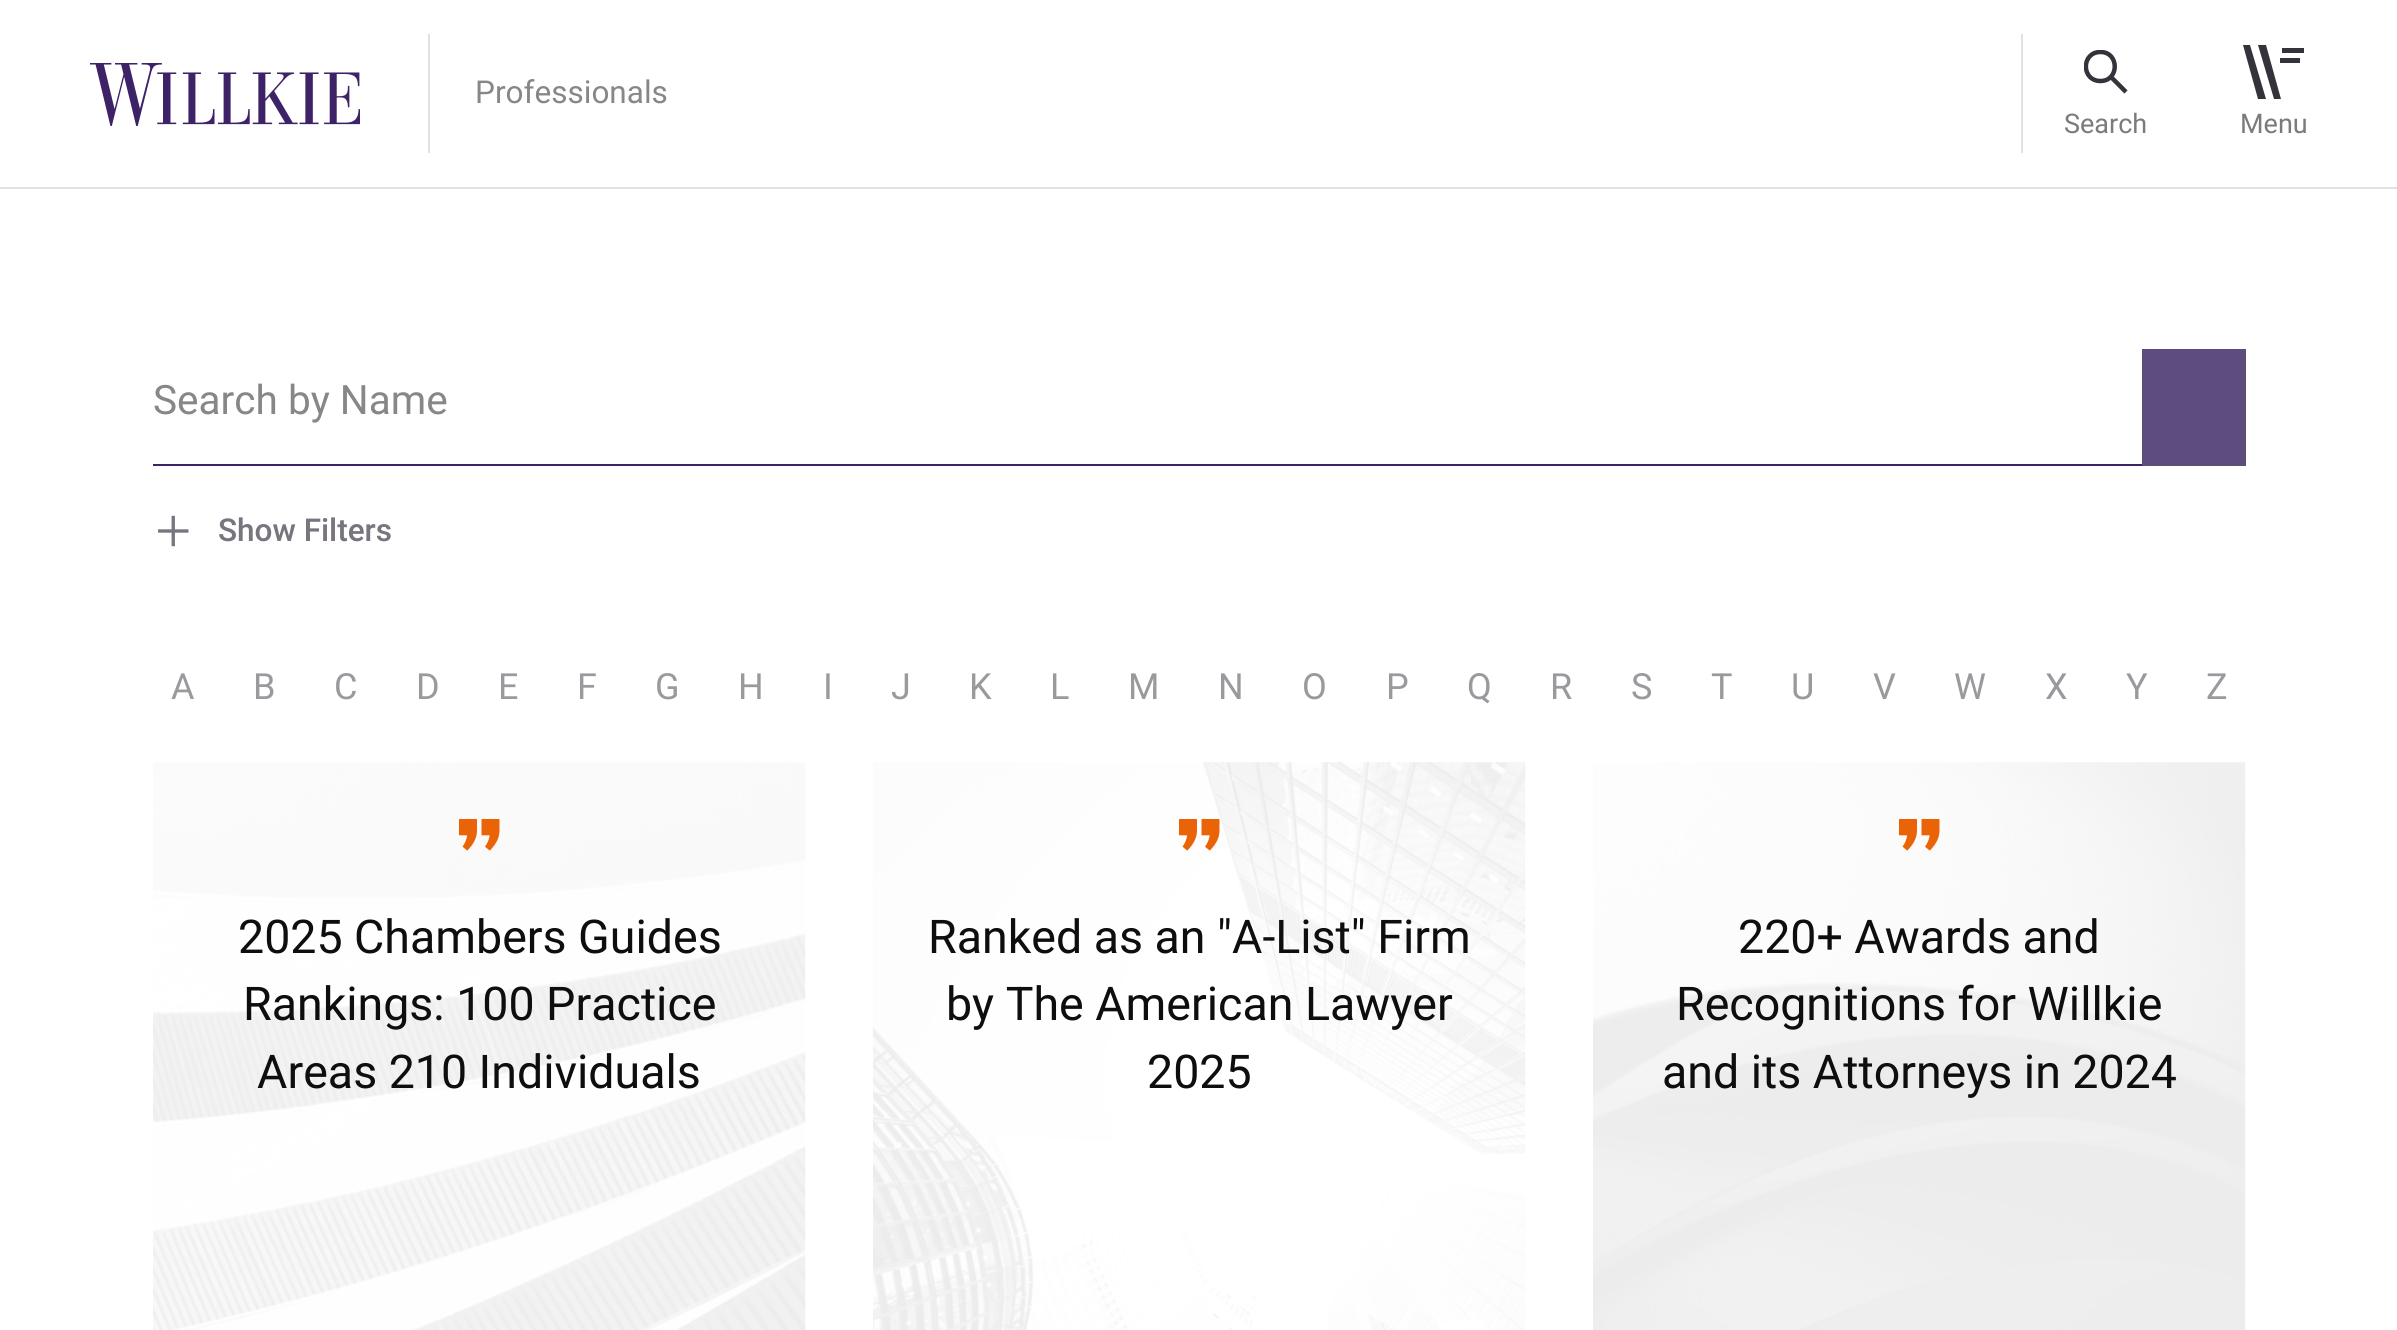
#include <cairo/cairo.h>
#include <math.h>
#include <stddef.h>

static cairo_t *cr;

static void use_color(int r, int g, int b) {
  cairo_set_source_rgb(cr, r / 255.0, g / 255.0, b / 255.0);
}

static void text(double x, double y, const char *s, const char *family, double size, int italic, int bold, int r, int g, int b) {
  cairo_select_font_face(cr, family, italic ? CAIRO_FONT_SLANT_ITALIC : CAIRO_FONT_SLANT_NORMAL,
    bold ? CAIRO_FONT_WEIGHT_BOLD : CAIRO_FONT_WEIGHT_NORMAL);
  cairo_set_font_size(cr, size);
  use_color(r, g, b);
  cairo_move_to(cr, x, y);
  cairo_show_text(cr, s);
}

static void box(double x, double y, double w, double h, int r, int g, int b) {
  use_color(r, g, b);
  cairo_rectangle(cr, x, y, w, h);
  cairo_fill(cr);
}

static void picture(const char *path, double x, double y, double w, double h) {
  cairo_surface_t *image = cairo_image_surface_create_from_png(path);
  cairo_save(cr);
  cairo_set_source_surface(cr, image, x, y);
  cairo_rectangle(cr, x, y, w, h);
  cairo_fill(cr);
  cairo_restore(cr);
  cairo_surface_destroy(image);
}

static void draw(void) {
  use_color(255, 255, 255);
  cairo_paint(cr);
  box(0, 187, 2397, 2, 225, 224, 226);
  box(428, 34, 2, 119, 225, 224, 226);
  picture("img_01.png", 90, 63, 270, 63);
  box(2021, 34, 2, 119, 225, 224, 226);
  cairo_new_path(cr);
  cairo_move_to(cr, 2110.5, 76.5);
  cairo_line_to(cr, 2126, 92);
  use_color(54, 50, 59);
  cairo_set_line_width(cr, 4.5);
  cairo_stroke(cr);
  cairo_save(cr);
  cairo_rectangle(cr, 2084, 50, 45, 45);
  cairo_clip(cr);
  cairo_new_path(cr);
  cairo_move_to(cr, 2100.5, 52);
  cairo_curve_to(cr, 2119.5, 52, 2119.5, 81, 2100.5, 81);
  cairo_curve_to(cr, 2081, 81, 2081, 52, 2100.5, 52);
  cairo_close_path(cr);
  cairo_stroke(cr);
  cairo_restore(cr);
  box(2280, 58, 20, 5, 54, 50, 59);
  cairo_new_path(cr);
  cairo_move_to(cr, 2258, 45);
  cairo_line_to(cr, 2274, 99);
  cairo_line_to(cr, 2281, 99);
  cairo_line_to(cr, 2266, 45);
  cairo_close_path(cr);
  cairo_fill(cr);
  cairo_new_path(cr);
  cairo_move_to(cr, 2243, 45);
  cairo_line_to(cr, 2258, 99);
  cairo_line_to(cr, 2266, 99);
  cairo_line_to(cr, 2250, 45);
  cairo_close_path(cr);
  cairo_fill(cr);
  box(2282, 48, 22, 5, 54, 50, 59);
  box(2142, 349, 104, 117, 93, 77, 126);
  box(153, 464, 1989, 2, 62, 34, 104);
  picture("img_02.png", 158, 515, 31, 32);
  picture("img_03.png", 153, 762, 653, 568);
  picture("img_04.png", 459, 819, 41, 32);
  picture("img_05.png", 873, 762, 653, 568);
  picture("img_06.png", 1179, 819, 41, 32);
  picture("img_07.png", 1593, 762, 653, 568);
  picture("img_08.png", 1899, 819, 41, 32);
  text(475, 103, "Professionals", "Heebo", 31.5, 0, 0, 135, 135, 135);
  text(2064, 133, "Search", "Heebo", 27, 0, 0, 123, 123, 123);
  text(2240, 133, "Menu", "Heebo", 27, 0, 0, 123, 123, 123);
  text(153, 414, "Search by Name", "Heebo", 40.5, 0, 0, 135, 135, 135);
  text(218, 541, "Show Filters", "Heebo Medium", 31.5, 0, 0, 121, 117, 127);
  text(171, 699, "A", "Heebo", 36, 0, 0, 155, 153, 157);
  text(253, 699, "B", "Heebo", 36, 0, 0, 155, 153, 157);
  text(334, 699, "C", "Heebo", 36, 0, 0, 155, 153, 157);
  text(416, 699, "D", "Heebo", 36, 0, 0, 155, 153, 157);
  text(498, 699, "E", "Heebo", 36, 0, 0, 155, 153, 157);
  text(577, 699, "F", "Heebo", 36, 0, 0, 155, 153, 157);
  text(655, 699, "G", "Heebo", 36, 0, 0, 155, 153, 157);
  text(738, 699, "H", "Heebo", 36, 0, 0, 155, 153, 157);
  text(823, 699, "I", "Heebo", 36, 0, 0, 155, 153, 157);
  text(891, 699, "J", "Heebo", 36, 0, 0, 155, 153, 157);
  text(969, 699, "K", "Heebo", 36, 0, 0, 155, 153, 157);
  text(1050, 699, "L", "Heebo", 36, 0, 0, 155, 153, 157);
  text(1128, 699, "M", "Heebo", 36, 0, 0, 155, 153, 157);
  text(1218, 699, "N", "Heebo", 36, 0, 0, 155, 153, 157);
  text(1302, 699, "O", "Heebo", 36, 0, 0, 155, 153, 157);
  text(1386, 699, "P", "Heebo", 36, 0, 0, 155, 153, 157);
  text(1467, 699, "Q", "Heebo", 36, 0, 0, 155, 153, 157);
  text(1550, 699, "R", "Heebo", 36, 0, 0, 155, 153, 157);
  text(1631, 699, "S", "Heebo", 36, 0, 0, 155, 153, 157);
  text(1711, 699, "T", "Heebo", 36, 0, 0, 155, 153, 157);
  text(1791, 699, "U", "Heebo", 36, 0, 0, 155, 153, 157);
  text(1873, 699, "V", "Heebo", 36, 0, 0, 155, 153, 157);
  text(1954, 699, "W", "Heebo", 36, 0, 0, 155, 153, 157);
  text(2045, 699, "X", "Heebo", 36, 0, 0, 155, 153, 157);
  text(2126, 699, "Y", "Heebo", 36, 0, 0, 155, 153, 157);
  text(2206, 699, "Z", "Heebo", 36, 0, 0, 155, 153, 157);
  text(238, 953, "2025 Chambers Guides", "Heebo", 46.5, 0, 0, 14, 14, 14);
  text(243, 1020, "Rankings: 100 Practice", "Heebo", 46.5, 0, 0, 14, 14, 14);
  text(257, 1088, "Areas 210 Individuals", "Heebo", 46.5, 0, 0, 14, 14, 14);
  text(928, 953, "Ranked as an \"A-List\" Firm", "Heebo", 46.5, 0, 0, 14, 14, 14);
  text(946, 1020, "by The American Lawyer", "Heebo", 46.5, 0, 0, 14, 14, 14);
  text(1147, 1088, "2025", "Heebo", 46.5, 0, 0, 14, 14, 14);
  text(1738, 953, "220+ Awards and", "Heebo", 46.5, 0, 0, 14, 14, 14);
  text(1676, 1020, "Recognitions for Willkie", "Heebo", 46.5, 0, 0, 14, 14, 14);
  text(1662, 1088, "and its Attorneys in 2024", "Heebo", 46.5, 0, 0, 14, 14, 14);
}

int main(void) {
  cairo_surface_t *surface = cairo_image_surface_create(CAIRO_FORMAT_RGB24, 2397, 1330);
  cr = cairo_create(surface);
  cairo_font_options_t *options = cairo_font_options_create();
  cairo_font_options_set_hint_metrics(options, CAIRO_HINT_METRICS_OFF);
  cairo_font_options_set_hint_style(options, CAIRO_HINT_STYLE_NONE);
  cairo_set_font_options(cr, options);
  cairo_set_miter_limit(cr, 4);
  draw();
  cairo_surface_write_to_png(surface, "out.png");
  cairo_font_options_destroy(options);
  cairo_destroy(cr);
  cairo_surface_destroy(surface);
  return 0;
}
